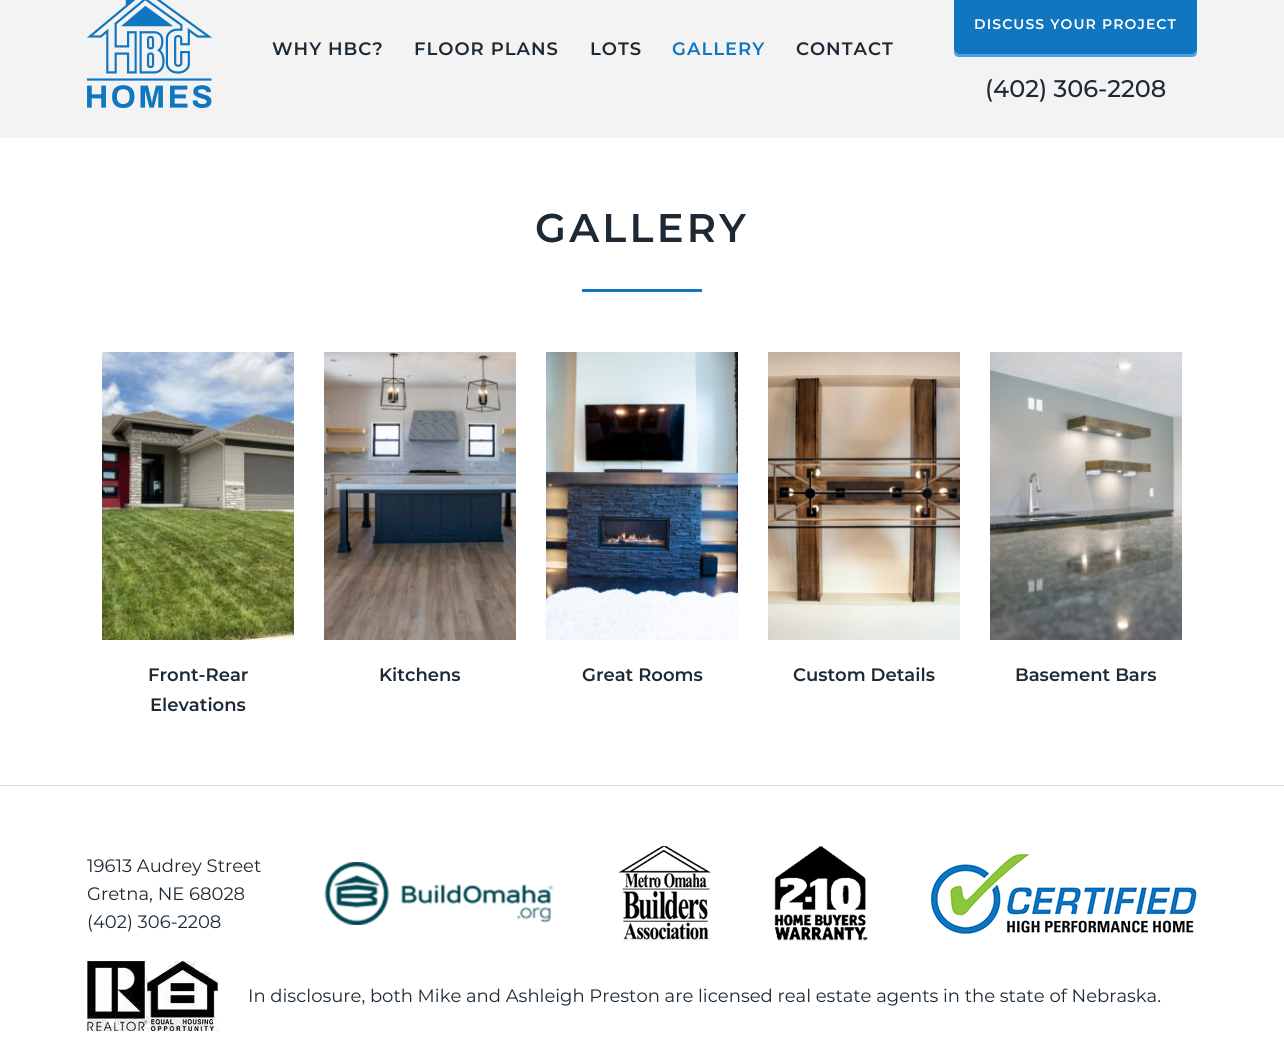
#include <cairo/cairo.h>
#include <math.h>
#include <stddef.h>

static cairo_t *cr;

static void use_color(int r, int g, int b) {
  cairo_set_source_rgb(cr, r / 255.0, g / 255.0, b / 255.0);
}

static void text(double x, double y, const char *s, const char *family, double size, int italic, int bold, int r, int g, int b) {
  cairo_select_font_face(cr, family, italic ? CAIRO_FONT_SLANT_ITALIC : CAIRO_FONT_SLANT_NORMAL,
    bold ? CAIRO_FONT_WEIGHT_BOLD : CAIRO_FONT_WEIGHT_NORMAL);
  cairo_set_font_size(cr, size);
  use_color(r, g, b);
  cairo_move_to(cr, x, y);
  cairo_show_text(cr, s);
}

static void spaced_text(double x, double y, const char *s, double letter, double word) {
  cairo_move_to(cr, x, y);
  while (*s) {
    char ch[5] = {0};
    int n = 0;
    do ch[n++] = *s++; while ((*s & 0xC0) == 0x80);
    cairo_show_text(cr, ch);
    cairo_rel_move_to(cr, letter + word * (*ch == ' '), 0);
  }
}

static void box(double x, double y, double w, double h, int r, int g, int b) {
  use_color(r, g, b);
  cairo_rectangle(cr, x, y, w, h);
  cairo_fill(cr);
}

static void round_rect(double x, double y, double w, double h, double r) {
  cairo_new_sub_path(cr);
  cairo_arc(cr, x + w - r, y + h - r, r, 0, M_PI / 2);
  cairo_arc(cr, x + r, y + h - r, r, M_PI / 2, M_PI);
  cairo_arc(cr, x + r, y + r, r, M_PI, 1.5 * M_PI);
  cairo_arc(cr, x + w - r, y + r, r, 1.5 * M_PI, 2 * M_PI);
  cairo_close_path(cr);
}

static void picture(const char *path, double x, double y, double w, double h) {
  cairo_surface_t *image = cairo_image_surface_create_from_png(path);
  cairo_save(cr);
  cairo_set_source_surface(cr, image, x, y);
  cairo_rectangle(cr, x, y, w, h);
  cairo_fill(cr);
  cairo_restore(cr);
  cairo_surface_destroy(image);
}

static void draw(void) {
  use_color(255, 255, 255);
  cairo_paint(cr);
  box(0, 0, 1284, 138, 243, 243, 243);
  picture("img_01.png", 87, 0, 125, 108);
  use_color(72, 162, 228);
  cairo_new_path(cr);
  cairo_move_to(cr, 954, 49);
  cairo_line_to(cr, 954, 52);
  cairo_curve_to(cr, 954, 55, 956, 57, 959, 57);
  cairo_line_to(cr, 1192, 57);
  cairo_curve_to(cr, 1195, 57, 1197, 55, 1197, 52);
  cairo_line_to(cr, 1197, 49);
  cairo_curve_to(cr, 1197, 52, 1195, 54, 1192, 54);
  cairo_line_to(cr, 959, 54);
  cairo_curve_to(cr, 956, 54, 954, 52, 954, 49);
  cairo_close_path(cr);
  cairo_fill(cr);
  use_color(17, 118, 192);
  round_rect(954, -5, 243, 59, 5);
  cairo_fill(cr);
  box(582, 289, 120, 3, 17, 118, 192);
  picture("img_02.png", 102, 352, 192, 288);
  picture("img_03.png", 324, 352, 192, 288);
  picture("img_04.png", 546, 352, 192, 288);
  picture("img_05.png", 768, 352, 192, 288);
  picture("img_06.png", 990, 352, 192, 288);
  box(0, 785, 1284, 1, 222, 222, 222);
  picture("img_07.png", 324, 862, 230, 63);
  picture("img_08.png", 618, 846, 93, 95);
  picture("img_09.png", 774, 846, 94, 95);
  picture("img_10.png", 931, 854, 266, 80);
  picture("img_11.png", 87, 961, 131, 70);
  cairo_select_font_face(cr, "Montserrat SemiBold", CAIRO_FONT_SLANT_NORMAL, CAIRO_FONT_WEIGHT_NORMAL);
  cairo_set_font_size(cr, 18);
  use_color(29, 42, 53);
  spaced_text(272, 55, "WHY HBC?", 1, 0);
  spaced_text(414, 55, "FLOOR PLANS", 1, 0);
  spaced_text(590, 55, "LOTS", 1, 0);
  use_color(17, 118, 192);
  spaced_text(672, 55, "GALLERY", 1, 0);
  use_color(29, 42, 53);
  spaced_text(796, 55, "CONTACT", 1, 0);
  cairo_set_font_size(cr, 14);
  use_color(255, 255, 255);
  spaced_text(974, 29, "DISCUSS YOUR PROJECT", 1.1, 0);
  text(985, 97, "(402) 306-2208", "Montserrat Medium", 24, 0, 0, 29, 42, 53);
  cairo_select_font_face(cr, "Montserrat SemiBold", CAIRO_FONT_SLANT_NORMAL, CAIRO_FONT_WEIGHT_NORMAL);
  cairo_set_font_size(cr, 40);
  spaced_text(535, 242, "GALLERY", 3.25, 0);
  text(148, 681, "Front-Rear", "Montserrat SemiBold", 18, 0, 0, 29, 42, 53);
  text(150, 711, "Elevations", "Montserrat SemiBold", 18, 0, 0, 29, 42, 53);
  text(379, 681, "Kitchens", "Montserrat SemiBold", 18, 0, 0, 29, 42, 53);
  text(582, 681, "Great Rooms", "Montserrat SemiBold", 18, 0, 0, 29, 42, 53);
  text(793, 681, "Custom Details", "Montserrat SemiBold", 18, 0, 0, 29, 42, 53);
  text(1015, 681, "Basement Bars", "Montserrat SemiBold", 18, 0, 0, 29, 42, 53);
  text(87, 872, "19613 Audrey Street", "Montserrat", 18, 0, 0, 29, 42, 53);
  text(87, 900, "Gretna, NE 68028", "Montserrat", 18, 0, 0, 29, 42, 53);
  text(87, 928, "(402) 306-2208", "Montserrat", 18, 0, 0, 29, 42, 53);
  text(248, 1002, "In disclosure, both Mike and Ashleigh Preston are licensed real estate agents in the state of Nebraska.", "Montserrat", 18, 0, 0, 29, 42, 53);
}

int main(void) {
  cairo_surface_t *surface = cairo_image_surface_create(CAIRO_FORMAT_RGB24, 1284, 1038);
  cr = cairo_create(surface);
  cairo_font_options_t *options = cairo_font_options_create();
  cairo_font_options_set_hint_metrics(options, CAIRO_HINT_METRICS_OFF);
  cairo_font_options_set_hint_style(options, CAIRO_HINT_STYLE_NONE);
  cairo_set_font_options(cr, options);
  cairo_set_miter_limit(cr, 4);
  draw();
  cairo_surface_write_to_png(surface, "out.png");
  cairo_font_options_destroy(options);
  cairo_destroy(cr);
  cairo_surface_destroy(surface);
  return 0;
}
